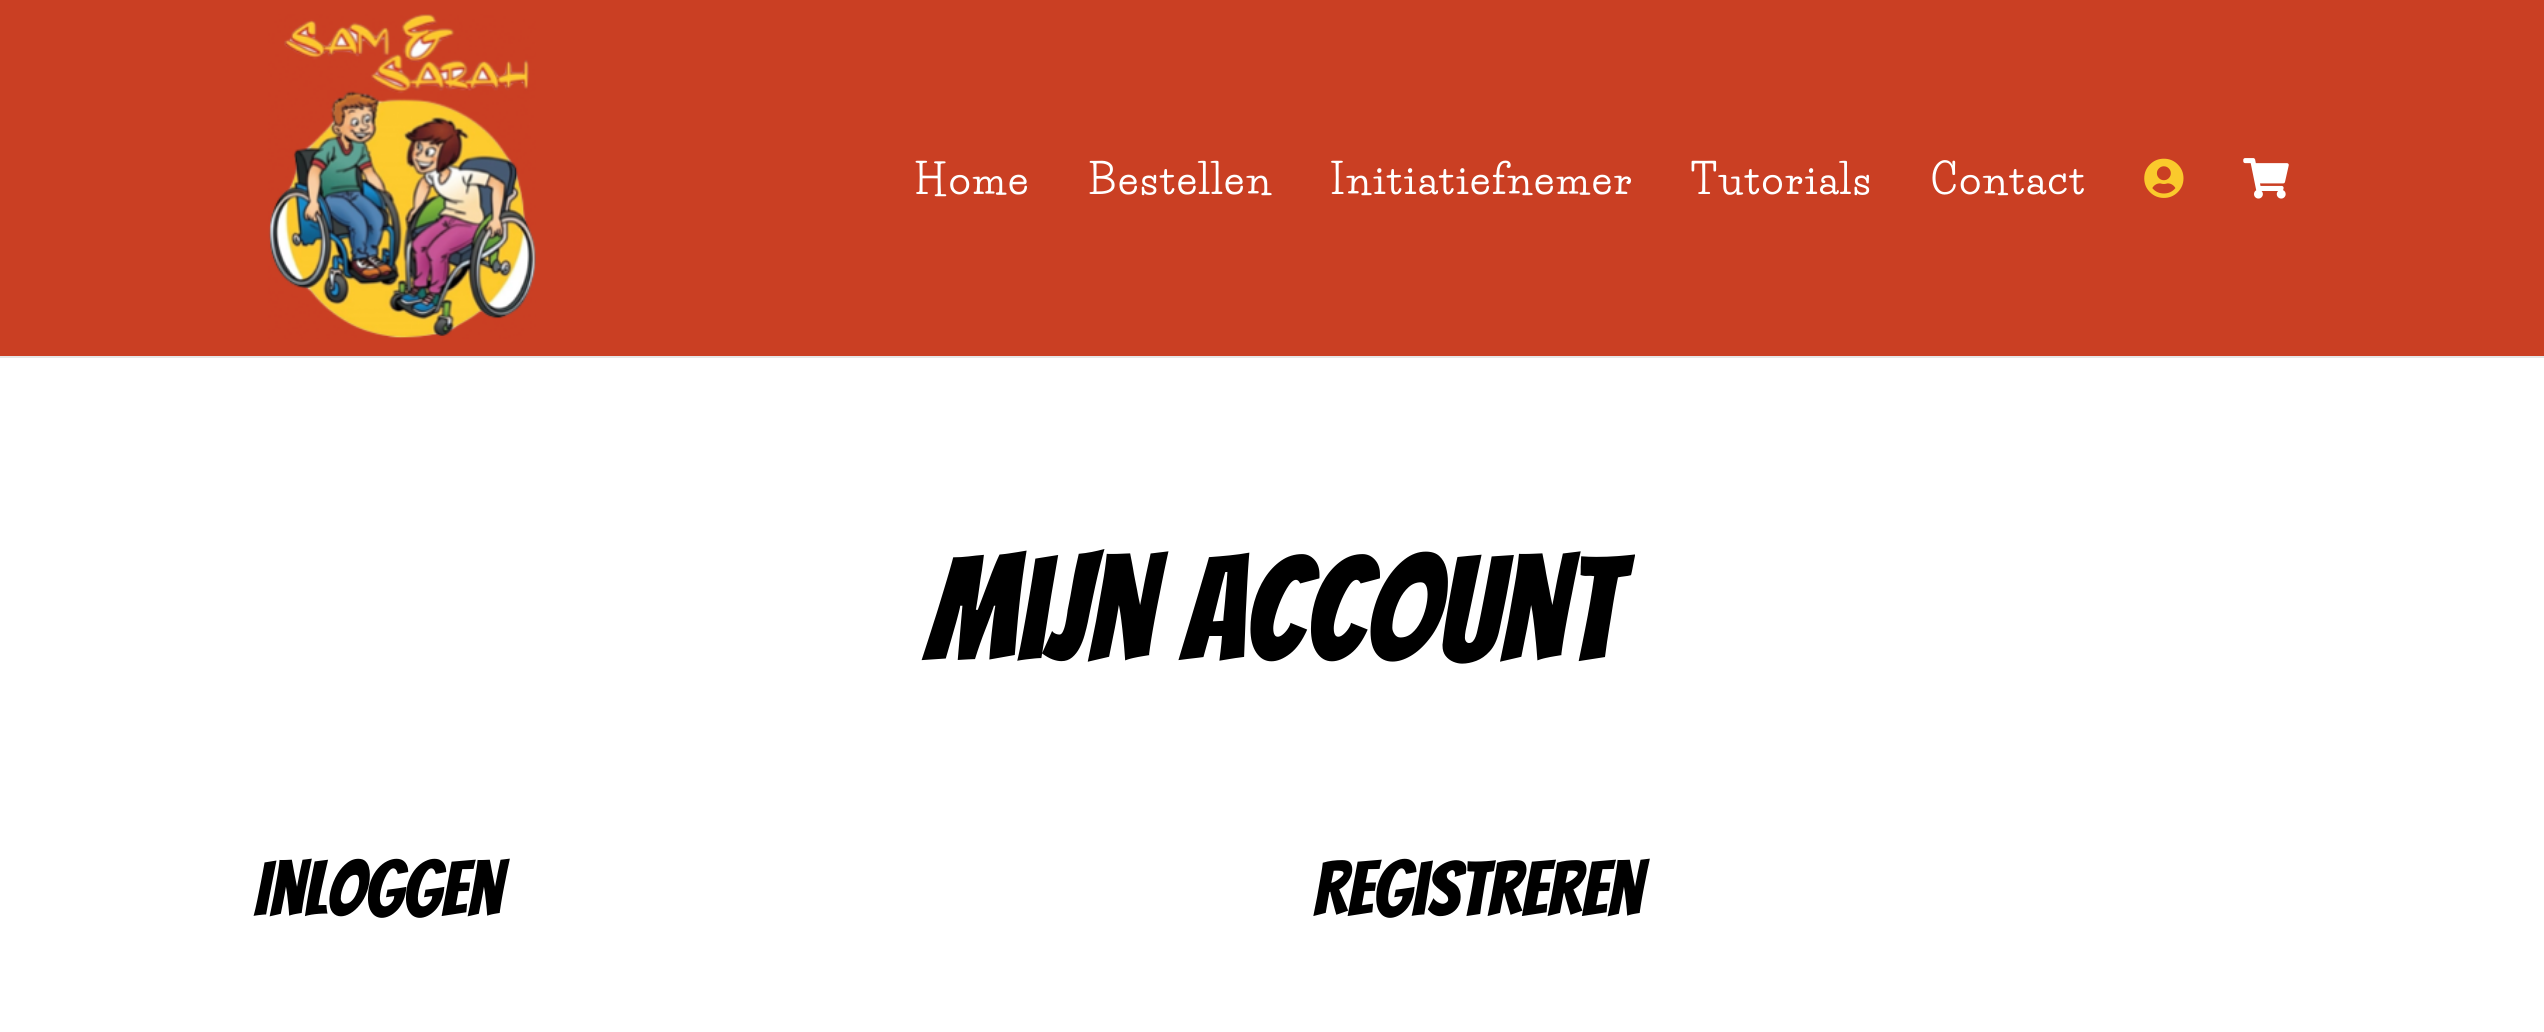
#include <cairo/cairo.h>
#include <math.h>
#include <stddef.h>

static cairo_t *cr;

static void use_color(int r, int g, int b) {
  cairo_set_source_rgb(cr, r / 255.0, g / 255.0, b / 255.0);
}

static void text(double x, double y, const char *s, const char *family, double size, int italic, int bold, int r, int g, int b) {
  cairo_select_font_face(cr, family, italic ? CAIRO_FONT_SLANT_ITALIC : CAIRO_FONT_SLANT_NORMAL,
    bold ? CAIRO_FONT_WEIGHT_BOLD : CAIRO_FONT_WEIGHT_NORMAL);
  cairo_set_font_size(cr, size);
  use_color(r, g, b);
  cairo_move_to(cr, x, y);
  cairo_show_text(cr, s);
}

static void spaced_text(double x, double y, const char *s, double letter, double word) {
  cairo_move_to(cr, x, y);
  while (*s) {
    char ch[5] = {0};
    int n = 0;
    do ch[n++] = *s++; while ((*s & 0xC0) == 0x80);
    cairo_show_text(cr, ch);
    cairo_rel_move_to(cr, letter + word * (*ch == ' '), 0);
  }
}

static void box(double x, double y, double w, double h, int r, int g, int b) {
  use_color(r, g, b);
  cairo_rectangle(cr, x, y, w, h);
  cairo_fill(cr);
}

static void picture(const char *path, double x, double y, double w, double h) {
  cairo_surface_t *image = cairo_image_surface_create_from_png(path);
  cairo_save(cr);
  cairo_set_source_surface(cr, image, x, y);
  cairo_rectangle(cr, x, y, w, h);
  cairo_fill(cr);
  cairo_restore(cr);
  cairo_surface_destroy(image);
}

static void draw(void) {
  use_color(255, 255, 255);
  cairo_paint(cr);
  use_color(230, 230, 230);
  cairo_new_path(cr);
  cairo_move_to(cr, 0, 356);
  cairo_line_to(cr, 0, 358);
  cairo_line_to(cr, 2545, 358);
  cairo_line_to(cr, 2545, 2);
  cairo_line_to(cr, 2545, 356);
  cairo_close_path(cr);
  cairo_fill(cr);
  box(0, 0, 2544, 356, 202, 63, 35);
  picture("img_01.png", 268, 14, 268, 325);
  picture("img_02.png", 2144, 158, 40, 40);
  picture("img_03.png", 2243, 158, 46, 41);
  cairo_select_font_face(cr, "Life Savers", CAIRO_FONT_SLANT_NORMAL, CAIRO_FONT_WEIGHT_BOLD);
  cairo_set_font_size(cr, 40.5);
  use_color(255, 255, 255);
  spaced_text(914, 194, "Home", 2.25, 0);
  spaced_text(1088, 194, "Bestellen", 2.25, 0);
  spaced_text(1330, 194, "Initiatiefnemer", 2.25, 0);
  spaced_text(1691, 194, "Tutorials", 2.25, 0);
  spaced_text(1931, 194, "Contact", 2.25, 0);
  text(926, 661, "Mijn account", "Bangers", 146.25, 0, 0, 0, 0, 0);
  text(254, 916, "Inloggen", "Bangers", 76.5, 0, 0, 0, 0, 0);
  text(1313, 916, "Registreren", "Bangers", 76.5, 0, 0, 0, 0, 0);
}

int main(void) {
  cairo_surface_t *surface = cairo_image_surface_create(CAIRO_FORMAT_RGB24, 2544, 1032);
  cr = cairo_create(surface);
  cairo_font_options_t *options = cairo_font_options_create();
  cairo_font_options_set_hint_metrics(options, CAIRO_HINT_METRICS_OFF);
  cairo_font_options_set_hint_style(options, CAIRO_HINT_STYLE_NONE);
  cairo_set_font_options(cr, options);
  cairo_set_miter_limit(cr, 4);
  draw();
  cairo_surface_write_to_png(surface, "out.png");
  cairo_font_options_destroy(options);
  cairo_destroy(cr);
  cairo_surface_destroy(surface);
  return 0;
}
